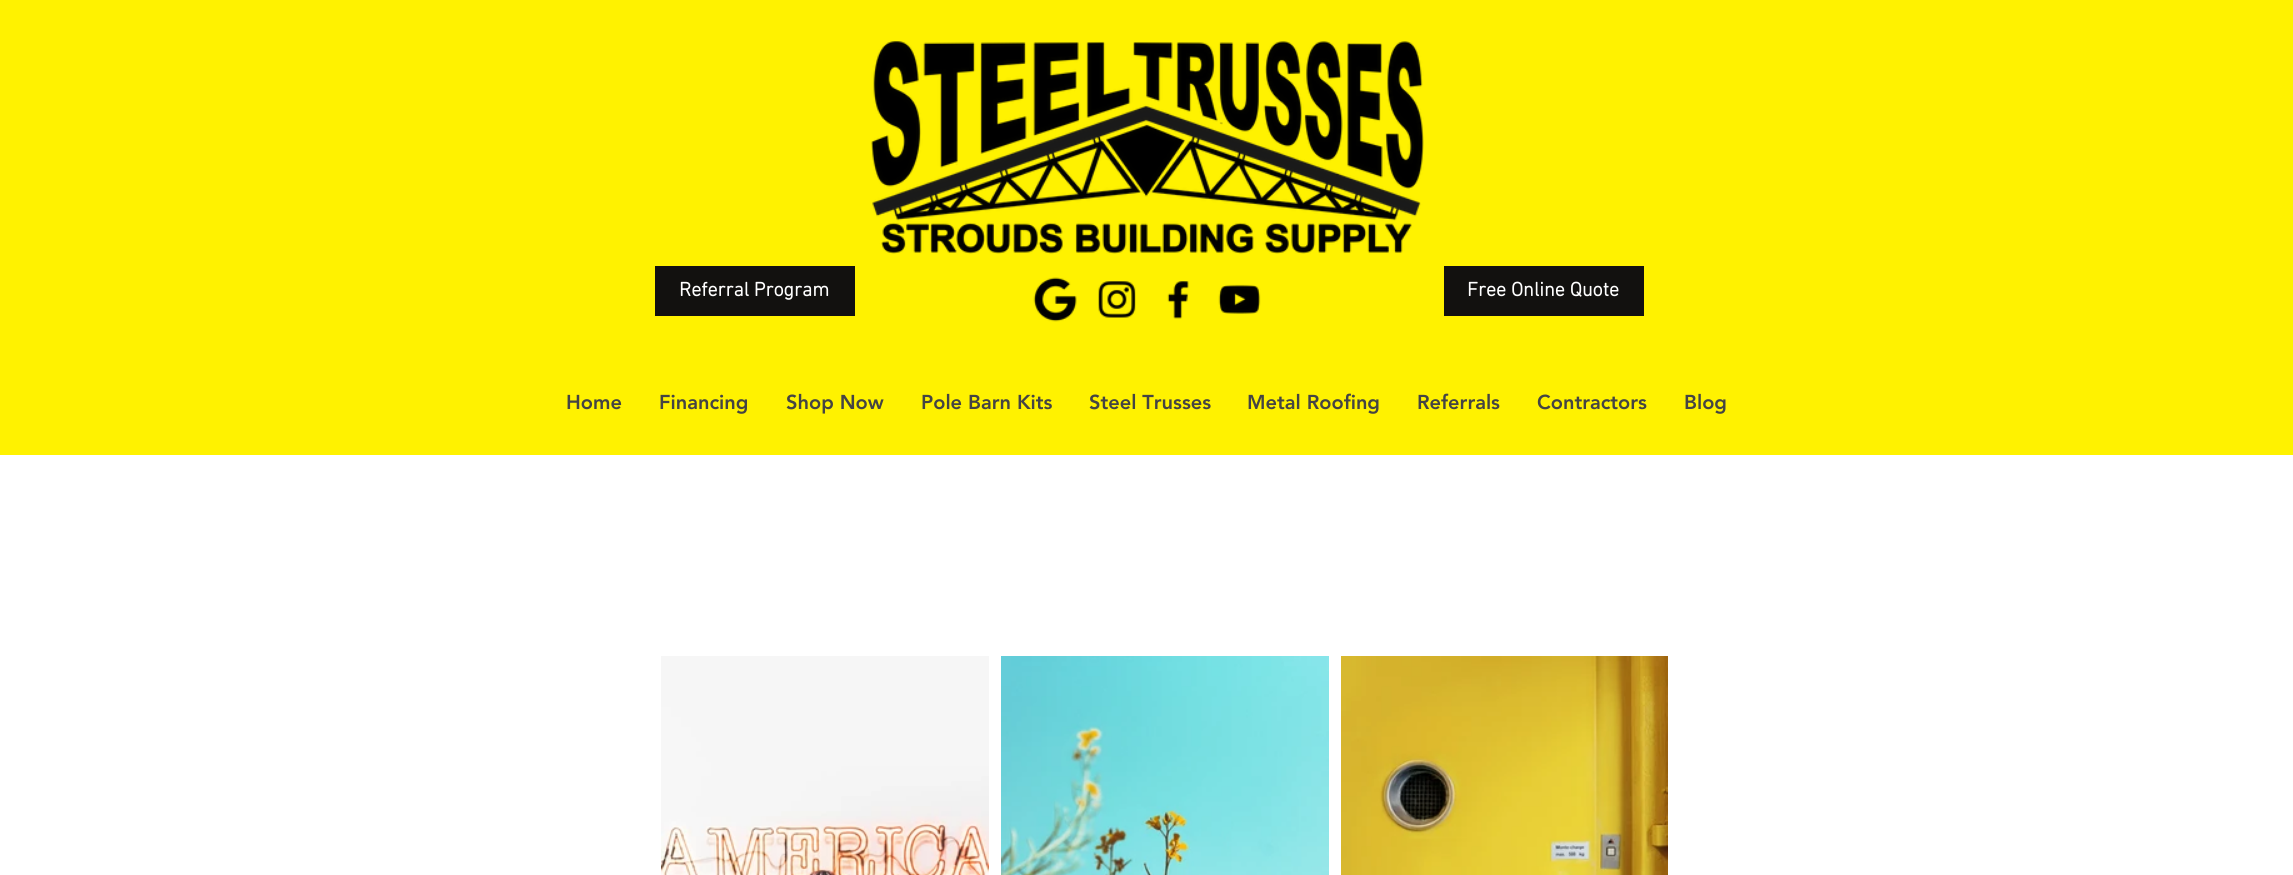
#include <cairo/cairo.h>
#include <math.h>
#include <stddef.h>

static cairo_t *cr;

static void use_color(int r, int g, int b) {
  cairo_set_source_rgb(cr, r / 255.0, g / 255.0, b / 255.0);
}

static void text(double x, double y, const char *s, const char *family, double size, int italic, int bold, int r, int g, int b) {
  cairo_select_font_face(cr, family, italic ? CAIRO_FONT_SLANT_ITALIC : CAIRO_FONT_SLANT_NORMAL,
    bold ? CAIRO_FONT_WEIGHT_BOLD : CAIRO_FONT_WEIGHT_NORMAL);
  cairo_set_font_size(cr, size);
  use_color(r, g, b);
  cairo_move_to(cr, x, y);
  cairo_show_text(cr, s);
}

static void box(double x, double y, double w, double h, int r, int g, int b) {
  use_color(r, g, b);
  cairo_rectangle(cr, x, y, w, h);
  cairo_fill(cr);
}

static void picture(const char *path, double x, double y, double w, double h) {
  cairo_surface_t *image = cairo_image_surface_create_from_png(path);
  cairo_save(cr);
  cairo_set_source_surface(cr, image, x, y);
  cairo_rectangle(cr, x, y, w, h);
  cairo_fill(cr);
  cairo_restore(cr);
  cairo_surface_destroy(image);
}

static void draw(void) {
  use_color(255, 255, 255);
  cairo_paint(cr);
  box(0, 0, 2293, 455, 255, 242, 0);
  picture("img_01.png", 871, 41, 553, 213);
  box(655, 266, 200, 50, 18, 17, 15);
  picture("img_02.png", 1033, 277, 44, 45);
  picture("img_03.png", 1098, 281, 38, 37);
  picture("img_04.png", 1167, 281, 22, 38);
  picture("img_05.png", 1218, 284, 43, 30);
  box(1444, 266, 200, 50, 18, 17, 15);
  picture("img_06.png", 661, 656, 328, 219);
  picture("img_07.png", 1001, 656, 328, 219);
  picture("img_08.png", 1341, 656, 327, 219);
  text(679, 296, "Referral Program", "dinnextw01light", 20, 0, 1, 255, 255, 255);
  text(1467, 296, "Free Online Quote", "dinnextw01light", 20, 0, 1, 255, 255, 255);
  text(566, 409, "Home", "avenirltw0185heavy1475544 Black", 20, 0, 0, 68, 68, 68);
  text(659, 409, "Financing", "avenirltw0185heavy1475544 Black", 20, 0, 0, 68, 68, 68);
  text(786, 409, "Shop Now", "avenirltw0185heavy1475544 Black", 20, 0, 0, 68, 68, 68);
  text(921, 409, "Pole Barn Kits", "avenirltw0185heavy1475544 Black", 20, 0, 0, 68, 68, 68);
  text(1089, 409, "Steel Trusses", "avenirltw0185heavy1475544 Black", 20, 0, 0, 68, 68, 68);
  text(1247, 409, "Metal Roofing", "avenirltw0185heavy1475544 Black", 20, 0, 0, 68, 68, 68);
  text(1417, 409, "Referrals", "avenirltw0185heavy1475544 Black", 20, 0, 0, 68, 68, 68);
  text(1537, 409, "Contractors", "avenirltw0185heavy1475544 Black", 20, 0, 0, 68, 68, 68);
  text(1684, 409, "Blog", "avenirltw0185heavy1475544 Black", 20, 0, 0, 68, 68, 68);
}

int main(void) {
  cairo_surface_t *surface = cairo_image_surface_create(CAIRO_FORMAT_RGB24, 2293, 875);
  cr = cairo_create(surface);
  cairo_font_options_t *options = cairo_font_options_create();
  cairo_font_options_set_hint_metrics(options, CAIRO_HINT_METRICS_OFF);
  cairo_font_options_set_hint_style(options, CAIRO_HINT_STYLE_NONE);
  cairo_set_font_options(cr, options);
  cairo_set_miter_limit(cr, 4);
  draw();
  cairo_surface_write_to_png(surface, "out.png");
  cairo_font_options_destroy(options);
  cairo_destroy(cr);
  cairo_surface_destroy(surface);
  return 0;
}
